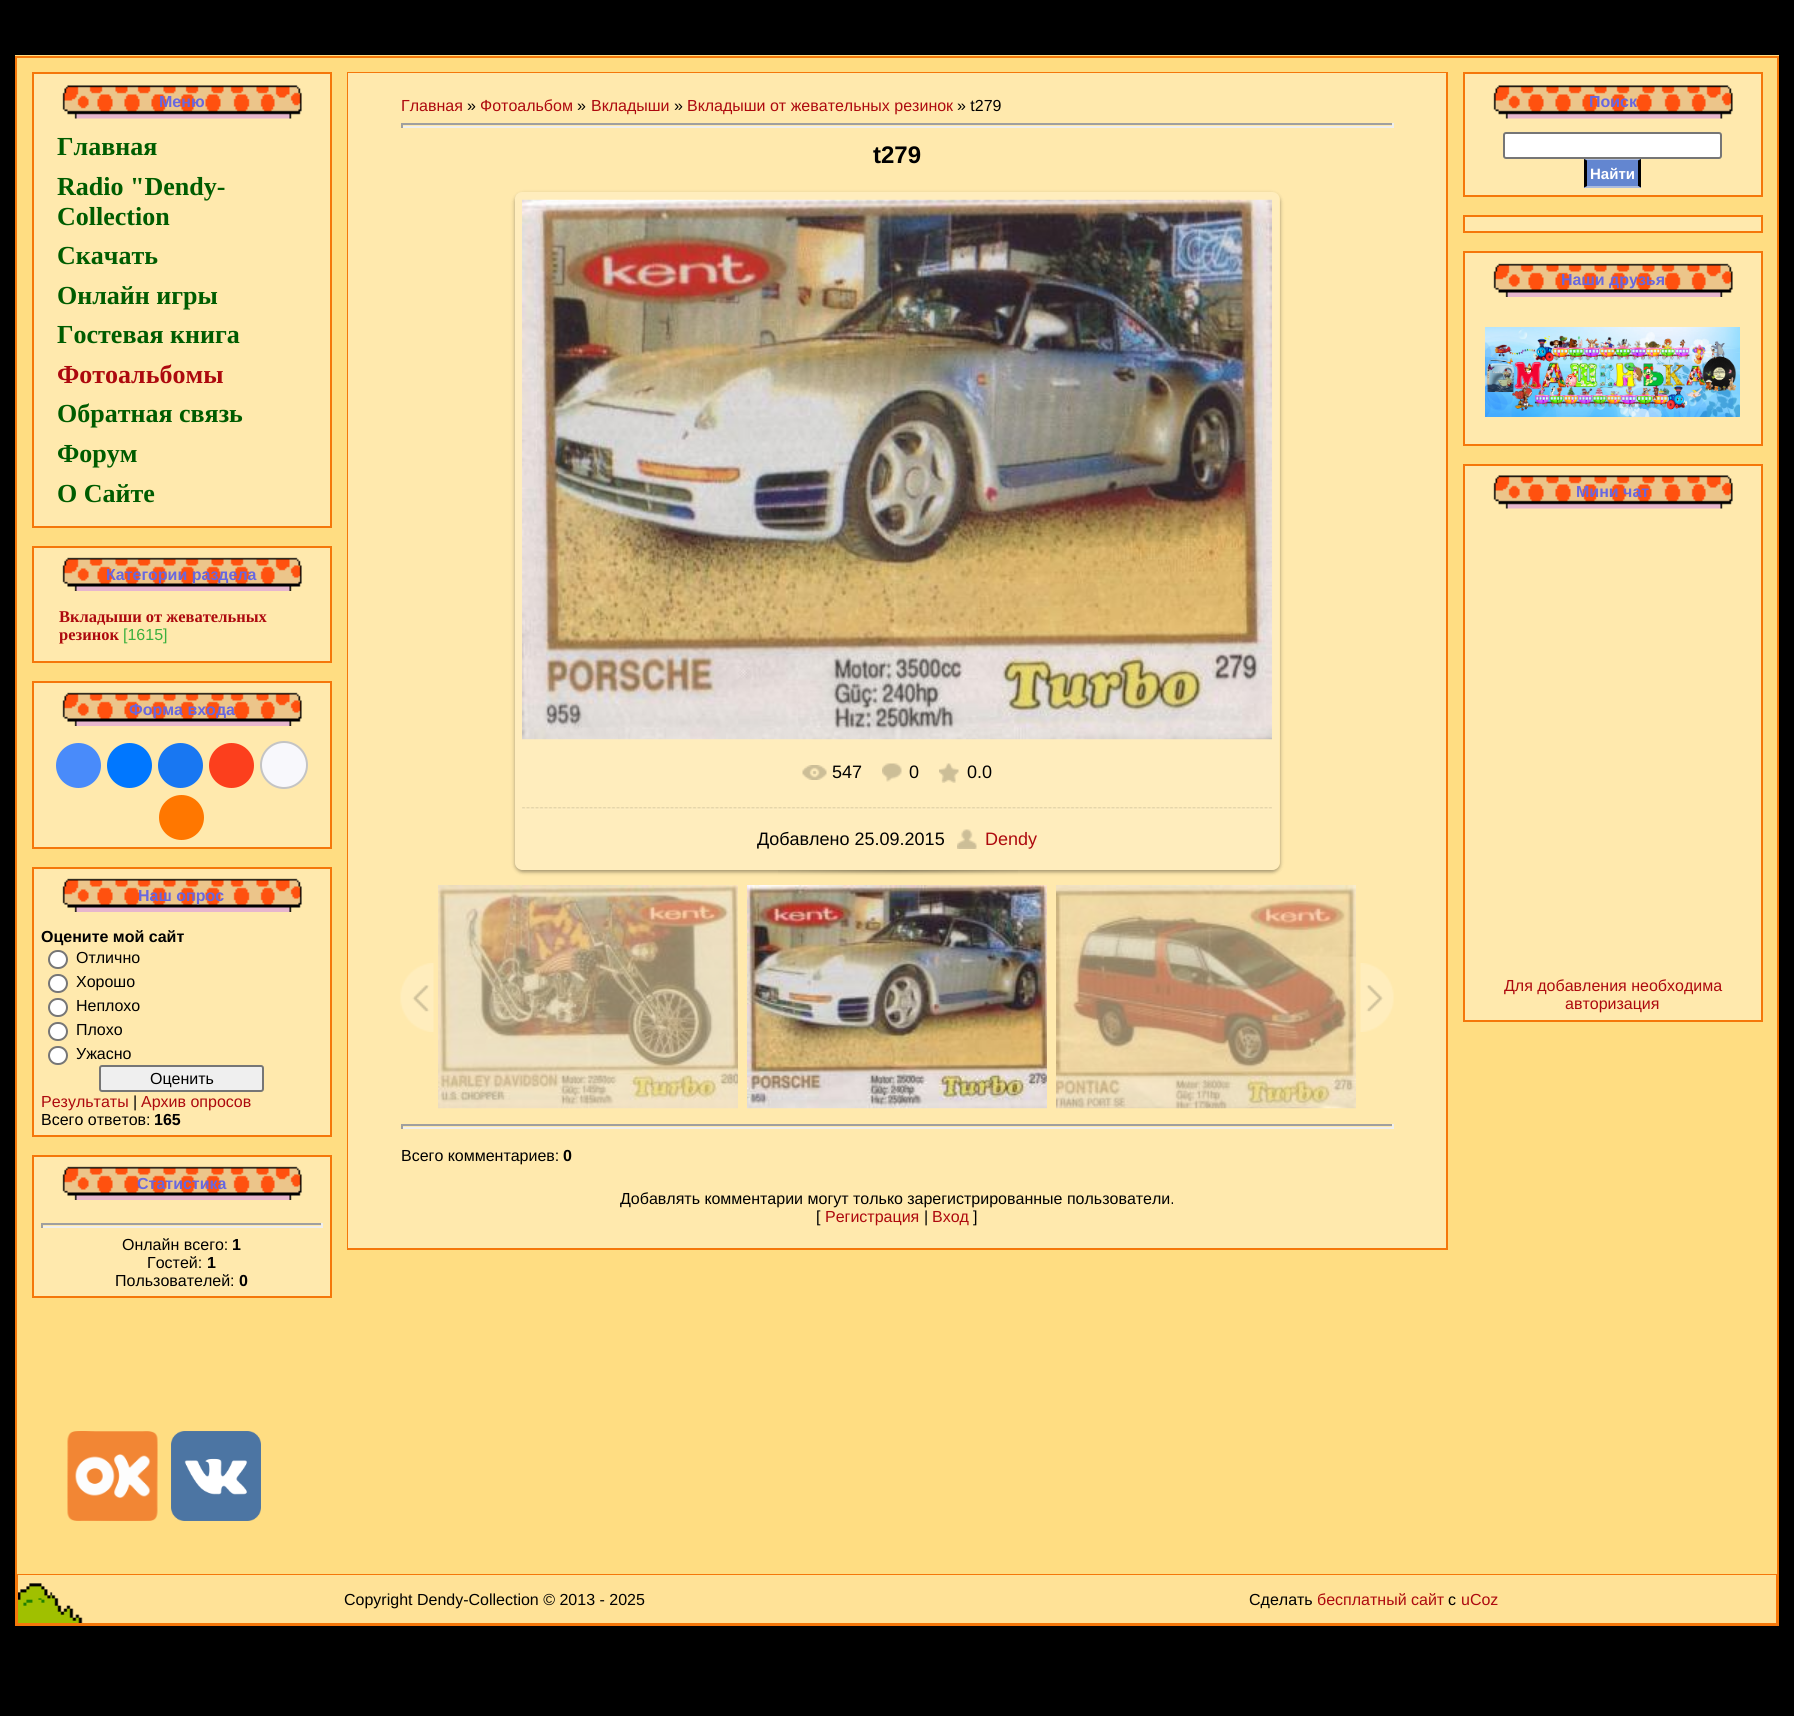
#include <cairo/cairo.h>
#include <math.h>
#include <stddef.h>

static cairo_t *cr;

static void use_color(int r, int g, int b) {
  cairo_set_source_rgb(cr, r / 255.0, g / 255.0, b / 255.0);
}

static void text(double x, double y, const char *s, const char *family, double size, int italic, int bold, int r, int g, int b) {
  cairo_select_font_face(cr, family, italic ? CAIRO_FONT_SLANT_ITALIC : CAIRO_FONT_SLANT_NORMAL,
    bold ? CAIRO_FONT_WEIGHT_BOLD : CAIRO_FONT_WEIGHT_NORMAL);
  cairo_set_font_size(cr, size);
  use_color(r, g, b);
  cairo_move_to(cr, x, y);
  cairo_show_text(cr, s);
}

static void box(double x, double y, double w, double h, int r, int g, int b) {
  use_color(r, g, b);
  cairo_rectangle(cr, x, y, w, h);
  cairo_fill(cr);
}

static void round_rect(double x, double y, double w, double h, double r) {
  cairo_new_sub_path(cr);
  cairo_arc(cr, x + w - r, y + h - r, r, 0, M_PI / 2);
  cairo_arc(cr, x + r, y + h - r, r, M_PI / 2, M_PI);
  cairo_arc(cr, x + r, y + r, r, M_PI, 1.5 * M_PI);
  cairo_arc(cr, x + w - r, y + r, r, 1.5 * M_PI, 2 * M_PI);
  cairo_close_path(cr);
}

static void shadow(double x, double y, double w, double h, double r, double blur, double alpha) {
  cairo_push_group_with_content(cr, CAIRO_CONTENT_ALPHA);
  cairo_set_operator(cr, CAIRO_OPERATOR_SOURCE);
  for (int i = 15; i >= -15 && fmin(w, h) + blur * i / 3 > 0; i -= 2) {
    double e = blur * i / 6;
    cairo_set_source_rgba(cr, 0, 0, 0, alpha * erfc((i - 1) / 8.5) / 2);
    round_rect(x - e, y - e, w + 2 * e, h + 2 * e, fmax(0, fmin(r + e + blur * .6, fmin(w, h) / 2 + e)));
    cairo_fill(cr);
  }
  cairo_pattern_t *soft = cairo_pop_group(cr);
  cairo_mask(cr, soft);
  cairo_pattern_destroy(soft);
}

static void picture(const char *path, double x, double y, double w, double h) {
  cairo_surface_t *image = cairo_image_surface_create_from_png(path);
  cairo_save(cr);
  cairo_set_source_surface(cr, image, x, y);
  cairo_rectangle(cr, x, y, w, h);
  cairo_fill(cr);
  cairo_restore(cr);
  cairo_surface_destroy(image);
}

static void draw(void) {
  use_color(0, 0, 0);
  cairo_paint(cr);
  box(15, 55, 1764, 1519, 255, 221, 130);
  cairo_rectangle(cr, 16, 57, 1762, 1568);
  use_color(245, 119, 10);
  cairo_stroke(cr);
  use_color(255, 233, 173);
  cairo_rectangle(cr, 33, 73, 298, 454);
  cairo_fill_preserve(cr);
  use_color(245, 119, 10);
  cairo_stroke(cr);
  picture("img_01.png", 62, 85, 240, 34);
  use_color(255, 233, 173);
  cairo_rectangle(cr, 33, 547, 298, 115);
  cairo_fill_preserve(cr);
  use_color(245, 119, 10);
  cairo_stroke(cr);
  picture("img_02.png", 62, 557, 240, 34);
  use_color(255, 233, 173);
  cairo_rectangle(cr, 33, 682, 298, 166);
  cairo_fill_preserve(cr);
  use_color(245, 119, 10);
  cairo_stroke(cr);
  picture("img_02.png", 62, 692, 240, 34);
  use_color(73, 139, 250);
  cairo_arc(cr, 78.5, 765.5, 22.5, 0, 2 * M_PI);
  cairo_fill(cr);
  use_color(0, 119, 255);
  cairo_arc(cr, 129.5, 765.5, 22.5, 0, 2 * M_PI);
  cairo_fill(cr);
  use_color(24, 119, 242);
  cairo_arc(cr, 180.5, 765.5, 22.5, 0, 2 * M_PI);
  cairo_fill(cr);
  use_color(252, 63, 29);
  cairo_arc(cr, 231.5, 765.5, 22.5, 0, 2 * M_PI);
  cairo_fill(cr);
  use_color(248, 248, 252);
  cairo_arc(cr, 284, 765, 23, 0, 2 * M_PI);
  cairo_fill_preserve(cr);
  use_color(196, 196, 196);
  cairo_stroke(cr);
  use_color(255, 119, 0);
  cairo_arc(cr, 181.5, 817.5, 22.5, 0, 2 * M_PI);
  cairo_fill(cr);
  use_color(255, 233, 173);
  cairo_rectangle(cr, 33, 868, 298, 268);
  cairo_fill_preserve(cr);
  use_color(245, 119, 10);
  cairo_stroke(cr);
  picture("img_02.png", 62, 878, 240, 34);
  use_color(255, 255, 255);
  round_rect(49, 951, 18, 17, 8.5);
  cairo_fill_preserve(cr);
  use_color(118, 118, 118);
  cairo_stroke(cr);
  use_color(255, 255, 255);
  round_rect(49, 975, 18, 17, 8.5);
  cairo_fill_preserve(cr);
  use_color(118, 118, 118);
  cairo_stroke(cr);
  use_color(255, 255, 255);
  round_rect(49, 999, 18, 17, 8.5);
  cairo_fill_preserve(cr);
  use_color(118, 118, 118);
  cairo_stroke(cr);
  use_color(255, 255, 255);
  round_rect(49, 1023, 18, 17, 8.5);
  cairo_fill_preserve(cr);
  use_color(118, 118, 118);
  cairo_stroke(cr);
  use_color(255, 255, 255);
  round_rect(49, 1047, 18, 17, 8.5);
  cairo_fill_preserve(cr);
  use_color(118, 118, 118);
  cairo_stroke(cr);
  use_color(239, 239, 239);
  round_rect(100, 1066, 163, 25, 2);
  cairo_fill_preserve(cr);
  use_color(118, 118, 118);
  cairo_stroke(cr);
  use_color(255, 233, 173);
  cairo_rectangle(cr, 33, 1156, 298, 141);
  cairo_fill_preserve(cr);
  use_color(245, 119, 10);
  cairo_stroke(cr);
  picture("img_02.png", 62, 1166, 240, 34);
  box(41, 1223, 282, 2, 159, 159, 159);
  box(321, 1223, 2, 5, 238, 238, 238);
  box(41, 1226, 282, 2, 238, 238, 238);
  box(41, 1223, 2, 5, 159, 159, 159);
  picture("img_03.png", 67, 1431, 91, 90);
  picture("img_04.png", 171, 1431, 90, 90);
  cairo_rectangle(cr, 348, 73, 1099, 1176);
  use_color(245, 119, 10);
  cairo_stroke(cr);
  box(348, 73, 1098, 1175, 255, 233, 173);
  box(401, 123, 993, 2, 159, 159, 159);
  box(1392, 123, 2, 5, 238, 238, 238);
  box(401, 126, 993, 2, 238, 238, 238);
  box(401, 123, 2, 5, 159, 159, 159);
  cairo_save(cr);
  cairo_set_fill_rule(cr, CAIRO_FILL_RULE_EVEN_ODD);
  cairo_new_path(cr);
  cairo_move_to(cr, 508, 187);
  cairo_line_to(cr, 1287, 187);
  cairo_line_to(cr, 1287, 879);
  cairo_line_to(cr, 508, 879);
  cairo_close_path(cr);
  cairo_move_to(cr, 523, 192);
  cairo_line_to(cr, 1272, 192);
  cairo_curve_to(cr, 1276.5, 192, 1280, 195.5, 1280, 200);
  cairo_line_to(cr, 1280, 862);
  cairo_curve_to(cr, 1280, 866.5, 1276.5, 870, 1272, 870);
  cairo_line_to(cr, 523, 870);
  cairo_curve_to(cr, 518.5, 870, 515, 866.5, 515, 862);
  cairo_line_to(cr, 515, 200);
  cairo_curve_to(cr, 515, 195.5, 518.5, 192, 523, 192);
  cairo_close_path(cr);
  cairo_clip(cr);
  use_color(0, 0, 0);
  shadow(515, 194, 765, 678, 8, 2, 0.37);
  cairo_restore(cr);
  picture("img_05.png", 514, 192, 766, 678);
  picture("img_06.png", 522, 199, 750, 541);
  picture("img_07.png", 802, 765, 25, 15);
  picture("img_08.png", 882, 763, 20, 19);
  picture("img_09.png", 939, 763, 20, 20);
  picture("img_10.png", 522, 807, 750, 3);
  picture("img_11.png", 957, 829, 20, 20);
  picture("img_12.png", 778, 870, 240, 5);
  picture("img_13.png", 400, 963, 34, 69);
  picture("img_14.png", 438, 885, 300, 224);
  picture("img_15.png", 747, 885, 300, 224);
  picture("img_16.png", 1056, 885, 300, 224);
  picture("img_17.png", 1360, 963, 34, 69);
  box(401, 1124, 993, 2, 159, 159, 159);
  box(1392, 1124, 2, 5, 238, 238, 238);
  box(401, 1127, 993, 2, 238, 238, 238);
  box(401, 1124, 2, 5, 159, 159, 159);
  use_color(255, 233, 173);
  cairo_rectangle(cr, 1464, 73, 298, 123);
  cairo_fill_preserve(cr);
  use_color(245, 119, 10);
  cairo_stroke(cr);
  picture("img_18.png", 1493, 85, 240, 34);
  use_color(255, 255, 255);
  round_rect(1504, 133, 217, 25, 2);
  cairo_fill_preserve(cr);
  use_color(118, 118, 118);
  cairo_stroke(cr);
  box(1584, 159, 57, 29, 99, 134, 208);
  use_color(171, 187, 222);
  cairo_new_path(cr);
  cairo_move_to(cr, 1584, 159);
  cairo_line_to(cr, 1641, 159);
  cairo_line_to(cr, 1638, 160);
  cairo_line_to(cr, 1587, 160);
  cairo_close_path(cr);
  cairo_fill(cr);
  use_color(0, 0, 0);
  cairo_new_path(cr);
  cairo_move_to(cr, 1641, 159);
  cairo_line_to(cr, 1641, 187.5);
  cairo_line_to(cr, 1638, 186);
  cairo_line_to(cr, 1638, 160.5);
  cairo_close_path(cr);
  cairo_fill(cr);
  use_color(171, 187, 222);
  cairo_new_path(cr);
  cairo_move_to(cr, 1641, 188);
  cairo_line_to(cr, 1584, 188);
  cairo_line_to(cr, 1587, 186);
  cairo_line_to(cr, 1638, 186);
  cairo_close_path(cr);
  cairo_fill(cr);
  use_color(0, 0, 0);
  cairo_new_path(cr);
  cairo_move_to(cr, 1584, 187.5);
  cairo_line_to(cr, 1584, 159);
  cairo_line_to(cr, 1587, 160.5);
  cairo_line_to(cr, 1587, 186);
  cairo_close_path(cr);
  cairo_fill(cr);
  use_color(255, 233, 173);
  cairo_rectangle(cr, 1464, 216, 298, 16);
  cairo_fill_preserve(cr);
  use_color(245, 119, 10);
  cairo_stroke(cr);
  use_color(255, 233, 173);
  cairo_rectangle(cr, 1464, 252, 298, 193);
  cairo_fill_preserve(cr);
  use_color(245, 119, 10);
  cairo_stroke(cr);
  picture("img_19.png", 1493, 263, 240, 34);
  picture("img_20.png", 1485, 327, 255, 90);
  use_color(255, 233, 173);
  cairo_rectangle(cr, 1464, 465, 298, 556);
  cairo_fill_preserve(cr);
  use_color(245, 119, 10);
  cairo_stroke(cr);
  picture("img_18.png", 1493, 475, 240, 34);
  cairo_rectangle(cr, 18, 1575, 1759, 49);
  cairo_stroke(cr);
  picture("img_21.png", 18, 1575, 952, 48);
  box(970, 1575, 806, 48, 255, 226, 151);
  text(159, 107, "Меню", "Liberation Sans", 16, 0, 1, 103, 103, 224);
  text(57, 155, "Главная", "Liberation Serif", 26, 0, 1, 0, 92, 0);
  text(57, 195, "Radio \"Dendy-", "Liberation Serif", 26, 0, 1, 0, 92, 0);
  text(57, 225, "Collection", "Liberation Serif", 26, 0, 1, 0, 92, 0);
  text(57, 264, "Скачать", "Liberation Serif", 26, 0, 1, 0, 92, 0);
  text(57, 304, "Онлайн игры", "Liberation Serif", 26, 0, 1, 0, 92, 0);
  text(57, 343, "Гостевая книга", "Liberation Serif", 26, 0, 1, 0, 92, 0);
  text(57, 383, "Фотоальбомы", "Liberation Serif", 26, 0, 1, 173, 9, 14);
  text(57, 422, "Обратная связь", "Liberation Serif", 26, 0, 1, 0, 92, 0);
  text(57, 462, "Форум", "Liberation Serif", 26, 0, 1, 0, 92, 0);
  text(57, 502, "О Сайте", "Liberation Serif", 26, 0, 1, 0, 92, 0);
  text(106, 580, "Категории раздела", "Liberation Sans", 16, 0, 1, 103, 103, 224);
  text(59, 622, "Вкладыши от жевательных", "Liberation Serif", 16.5, 0, 1, 173, 9, 14);
  text(59, 640, "резинок", "Liberation Serif", 16.5, 0, 1, 173, 9, 14);
  text(123, 640, "[1615]", "Liberation Sans", 16, 0, 0, 60, 176, 62);
  text(129, 715, "Форма входа", "Liberation Sans", 16, 0, 1, 103, 103, 224);
  text(138, 901, "Наш опрос", "Liberation Sans", 16, 0, 1, 103, 103, 224);
  text(41, 942, "Оцените мой сайт", "Liberation Sans", 16, 0, 1, 0, 0, 0);
  text(76, 963, "Отлично", "Liberation Sans", 16, 0, 0, 0, 0, 0);
  text(76, 987, "Хорошо", "Liberation Sans", 16, 0, 0, 0, 0, 0);
  text(76, 1011, "Неплохо", "Liberation Sans", 16, 0, 0, 0, 0, 0);
  text(76, 1035, "Плохо", "Liberation Sans", 16, 0, 0, 0, 0, 0);
  text(76, 1059, "Ужасно", "Liberation Sans", 16, 0, 0, 0, 0, 0);
  text(150, 1084, "Оценить", "Liberation Sans", 16, 0, 0, 0, 0, 0);
  text(41, 1107, "Результаты", "Liberation Sans", 16, 0, 0, 173, 9, 14);
  text(133, 1107, "|", "Liberation Sans", 16, 0, 0, 0, 0, 0);
  text(141, 1107, "Архив опросов", "Liberation Sans", 16, 0, 0, 173, 9, 14);
  text(41, 1125, "Всего ответов:", "Liberation Sans", 16, 0, 0, 0, 0, 0);
  text(154, 1125, "165", "Liberation Sans", 16, 0, 1, 0, 0, 0);
  text(137, 1189, "Статистика", "Liberation Sans", 16, 0, 1, 103, 103, 224);
  text(122, 1250, "Онлайн всего:", "Liberation Sans", 16, 0, 0, 0, 0, 0);
  text(232, 1250, "1", "Liberation Sans", 16, 0, 1, 0, 0, 0);
  text(147, 1268, "Гостей:", "Liberation Sans", 16, 0, 0, 0, 0, 0);
  text(207, 1268, "1", "Liberation Sans", 16, 0, 1, 0, 0, 0);
  text(115, 1286, "Пользователей:", "Liberation Sans", 16, 0, 0, 0, 0, 0);
  text(239, 1286, "0", "Liberation Sans", 16, 0, 1, 0, 0, 0);
  text(401, 111, "Главная", "Liberation Sans", 16, 0, 0, 173, 9, 14);
  text(467, 111, "»", "Liberation Sans", 16, 0, 0, 0, 0, 0);
  text(480, 111, "Фотоальбом", "Liberation Sans", 16, 0, 0, 173, 9, 14);
  text(577, 111, "»", "Liberation Sans", 16, 0, 0, 0, 0, 0);
  text(591, 111, "Вкладыши", "Liberation Sans", 16, 0, 0, 173, 9, 14);
  text(674, 111, "»", "Liberation Sans", 16, 0, 0, 0, 0, 0);
  text(687, 111, "Вкладыши от жевательных резинок", "Liberation Sans", 16, 0, 0, 173, 9, 14);
  text(957, 111, "» t279", "Liberation Sans", 16, 0, 0, 0, 0, 0);
  text(873, 163, "t279", "Liberation Sans", 24, 0, 1, 0, 0, 0);
  text(832, 778, "547", "Liberation Sans", 18, 0, 0, 0, 0, 0);
  text(909, 778, "0", "Liberation Sans", 18, 0, 0, 0, 0, 0);
  text(967, 778, "0.0", "Liberation Sans", 18, 0, 0, 0, 0, 0);
  text(757, 845, "Добавлено 25.09.2015", "Liberation Sans", 18, 0, 0, 0, 0, 0);
  text(985, 845, "Dendy", "Liberation Sans", 18, 0, 0, 173, 9, 14);
  text(401, 1161, "Всего комментариев:", "Liberation Sans", 16, 0, 0, 0, 0, 0);
  text(563, 1161, "0", "Liberation Sans", 16, 0, 1, 0, 0, 0);
  text(620, 1204, "Добавлять комментарии могут только зарегистрированные пользователи.", "Liberation Sans", 16, 0, 0, 0, 0, 0);
  text(816, 1222, "[", "Liberation Sans", 16, 0, 0, 0, 0, 0);
  text(825, 1222, "Регистрация", "Liberation Sans", 16, 0, 0, 173, 9, 14);
  text(924, 1222, "|", "Liberation Sans", 16, 0, 0, 0, 0, 0);
  text(932, 1222, "Вход", "Liberation Sans", 16, 0, 0, 173, 9, 14);
  text(973, 1222, "]", "Liberation Sans", 16, 0, 0, 0, 0, 0);
  text(1589, 107, "Поиск", "Liberation Sans", 16, 0, 1, 103, 103, 224);
  text(1590, 179, "Найти", "Liberation Sans", 15, 0, 1, 255, 255, 255);
  text(1561, 285, "Наши друзья", "Liberation Sans", 16, 0, 1, 103, 103, 224);
  text(1576, 497, "Мини чат", "Liberation Sans", 16, 0, 1, 103, 103, 224);
  text(1504, 991, "Для добавления необходима", "Liberation Sans", 16, 0, 0, 173, 9, 14);
  text(1565, 1009, "авторизация", "Liberation Sans", 16, 0, 0, 173, 9, 14);
  text(344, 1605, "Copyright Dendy-Collection © 2013 - 2025", "Liberation Sans", 16, 0, 0, 0, 0, 0);
  text(1249, 1605, "Сделать", "Liberation Sans", 16, 0, 0, 0, 0, 0);
  text(1317, 1605, "бесплатный сайт", "Liberation Sans", 16, 0, 0, 173, 9, 14);
  text(1448, 1605, "с", "Liberation Sans", 16, 0, 0, 0, 0, 0);
  text(1461, 1605, "uCoz", "Liberation Sans", 16, 0, 0, 173, 9, 14);
}

int main(void) {
  cairo_surface_t *surface = cairo_image_surface_create(CAIRO_FORMAT_RGB24, 1794, 1716);
  cr = cairo_create(surface);
  cairo_font_options_t *options = cairo_font_options_create();
  cairo_font_options_set_hint_metrics(options, CAIRO_HINT_METRICS_OFF);
  cairo_font_options_set_hint_style(options, CAIRO_HINT_STYLE_NONE);
  cairo_set_font_options(cr, options);
  cairo_set_miter_limit(cr, 4);
  draw();
  cairo_surface_write_to_png(surface, "out.png");
  cairo_font_options_destroy(options);
  cairo_destroy(cr);
  cairo_surface_destroy(surface);
  return 0;
}
